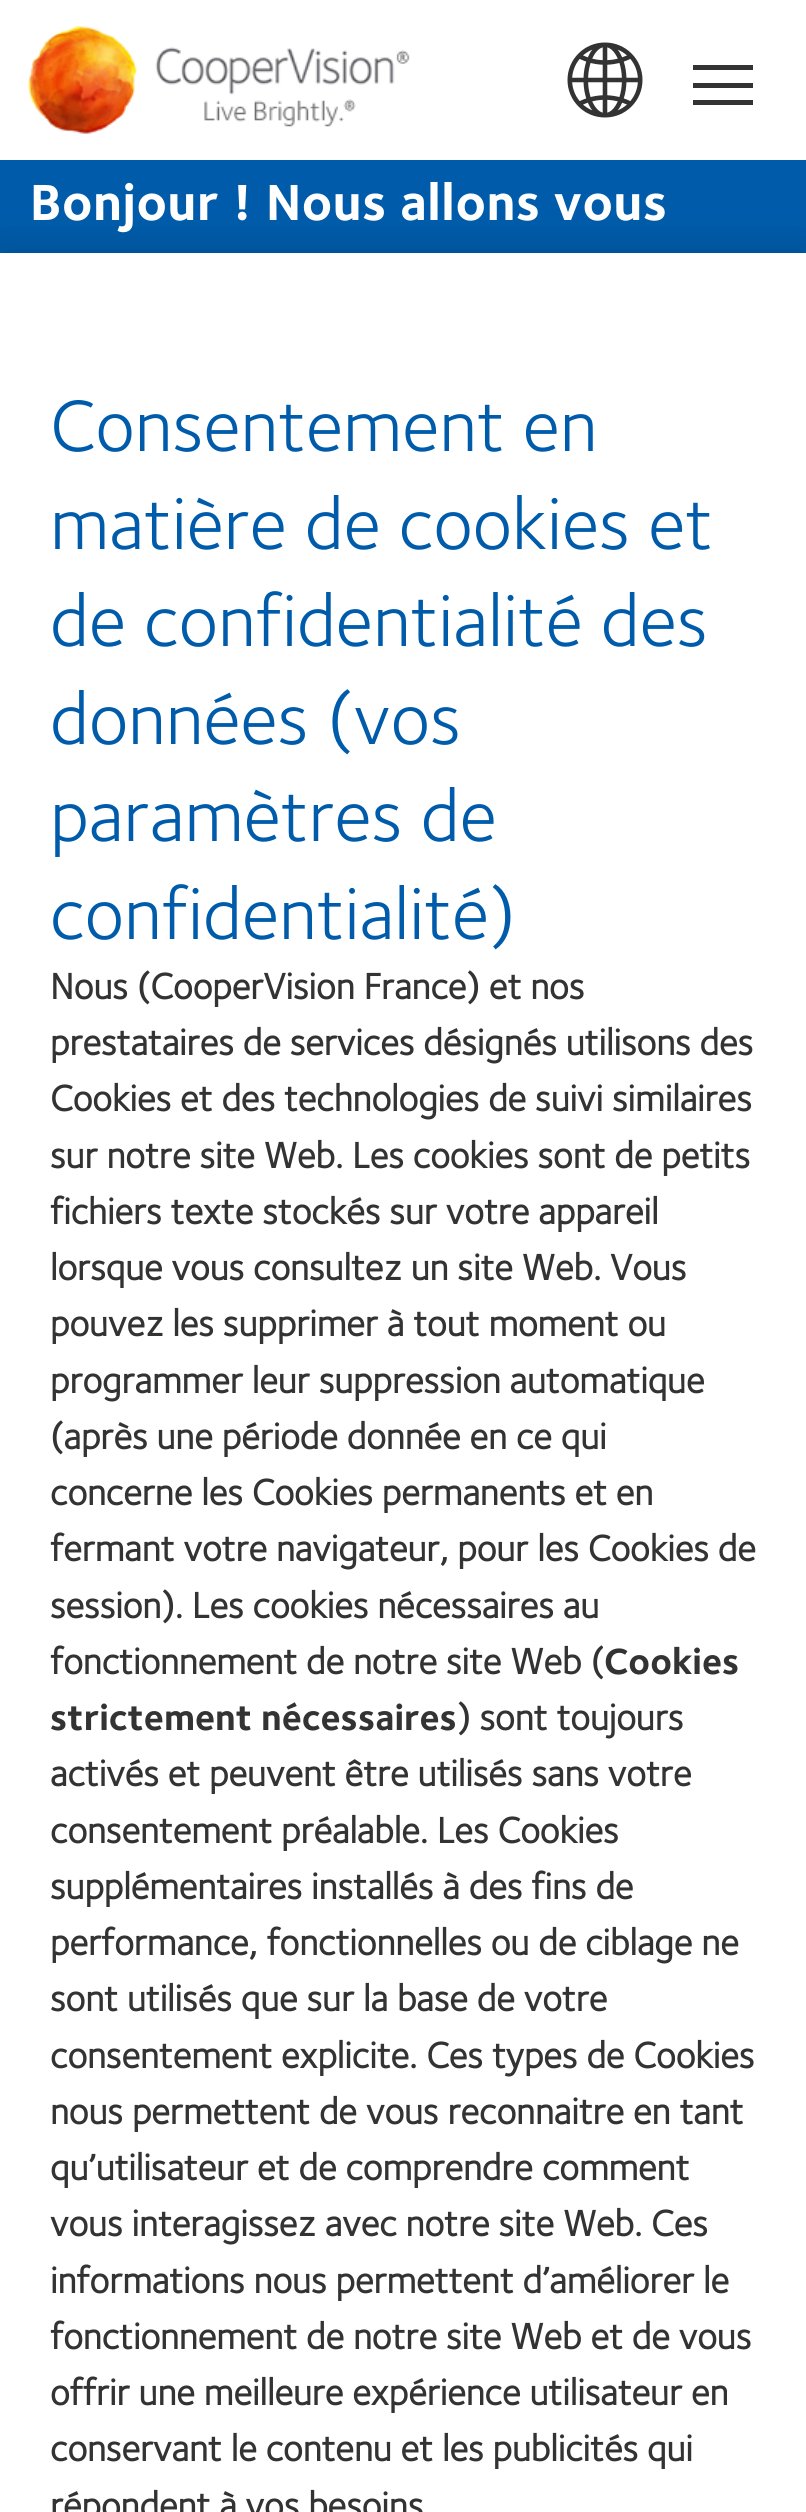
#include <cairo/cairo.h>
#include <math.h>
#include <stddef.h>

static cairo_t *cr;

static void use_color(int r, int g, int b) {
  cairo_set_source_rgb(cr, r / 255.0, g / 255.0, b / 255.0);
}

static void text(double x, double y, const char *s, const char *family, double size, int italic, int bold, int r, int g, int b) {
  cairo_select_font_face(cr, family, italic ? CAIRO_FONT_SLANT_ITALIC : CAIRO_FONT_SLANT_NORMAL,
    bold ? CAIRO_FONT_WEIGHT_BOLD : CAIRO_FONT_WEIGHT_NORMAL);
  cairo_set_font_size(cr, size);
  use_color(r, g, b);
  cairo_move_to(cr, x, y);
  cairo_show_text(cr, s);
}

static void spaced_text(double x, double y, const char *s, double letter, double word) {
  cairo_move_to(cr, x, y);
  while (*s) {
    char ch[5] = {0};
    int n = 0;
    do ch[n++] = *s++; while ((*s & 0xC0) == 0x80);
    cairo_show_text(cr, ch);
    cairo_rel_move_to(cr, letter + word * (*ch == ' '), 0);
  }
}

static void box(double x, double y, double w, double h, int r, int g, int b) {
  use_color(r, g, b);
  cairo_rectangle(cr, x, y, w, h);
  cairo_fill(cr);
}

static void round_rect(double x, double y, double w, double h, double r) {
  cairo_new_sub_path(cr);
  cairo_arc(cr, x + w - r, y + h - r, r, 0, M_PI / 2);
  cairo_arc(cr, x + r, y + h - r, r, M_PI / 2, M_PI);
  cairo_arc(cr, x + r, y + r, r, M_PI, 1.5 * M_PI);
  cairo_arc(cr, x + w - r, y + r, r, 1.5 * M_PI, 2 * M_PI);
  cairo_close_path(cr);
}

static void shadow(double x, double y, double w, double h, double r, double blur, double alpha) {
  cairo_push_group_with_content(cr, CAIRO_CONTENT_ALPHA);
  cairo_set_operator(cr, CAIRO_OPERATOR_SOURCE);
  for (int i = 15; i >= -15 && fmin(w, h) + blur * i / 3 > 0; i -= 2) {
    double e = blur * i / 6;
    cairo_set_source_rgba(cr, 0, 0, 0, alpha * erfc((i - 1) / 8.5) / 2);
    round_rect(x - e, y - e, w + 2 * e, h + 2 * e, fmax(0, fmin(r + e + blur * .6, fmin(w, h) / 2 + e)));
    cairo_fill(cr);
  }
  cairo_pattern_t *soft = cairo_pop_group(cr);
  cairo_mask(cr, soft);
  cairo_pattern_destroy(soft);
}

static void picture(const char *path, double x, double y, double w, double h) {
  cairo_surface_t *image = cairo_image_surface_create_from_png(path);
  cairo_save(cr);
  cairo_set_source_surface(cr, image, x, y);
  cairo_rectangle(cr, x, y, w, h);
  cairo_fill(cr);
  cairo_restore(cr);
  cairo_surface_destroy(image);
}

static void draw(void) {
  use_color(255, 255, 255);
  cairo_paint(cr);
  picture("img_01.png", 27, 26, 383, 108);
  picture("img_02.png", 567, 42, 76, 76);
  box(693, 65, 60, 5, 51, 51, 51);
  box(693, 83, 60, 5, 51, 51, 51);
  box(693, 100, 60, 5, 51, 51, 51);
  box(0, 160, 806, 93, 0, 92, 171);
  use_color(0, 0, 0);
  shadow(0, 253, 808, 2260, 0, 22.5, 0.2);
  box(0, 253, 806, 2259, 255, 255, 255);
  cairo_select_font_face(cr, "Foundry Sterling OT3", CAIRO_FONT_SLANT_NORMAL, CAIRO_FONT_WEIGHT_BOLD);
  cairo_set_font_size(cr, 52.5);
  spaced_text(30, 220, "Bonjour ! Nous allons vous", 0.55, 0);
  text(50, 451, "Consentement en", "Foundry Sterling OT3", 75, 0, 0, 0, 92, 171);
  text(50, 549, "matière de cookies et", "Foundry Sterling OT3", 75, 0, 0, 0, 92, 171);
  text(50, 646, "de confidentialité des", "Foundry Sterling OT3", 75, 0, 0, 0, 92, 171);
  text(50, 744, "données (vos", "Foundry Sterling OT3", 75, 0, 0, 0, 92, 171);
  text(50, 841, "paramètres de", "Foundry Sterling OT3", 75, 0, 0, 0, 92, 171);
  text(50, 939, "confidentialité)", "Foundry Sterling OT3", 75, 0, 0, 0, 92, 171);
  text(50, 999, "Nous (CooperVision France) et nos", "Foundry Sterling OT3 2", 37.5, 0, 1, 51, 51, 51);
  text(50, 1055, "prestataires de services désignés utilisons des", "Foundry Sterling OT3 2", 37.5, 0, 1, 51, 51, 51);
  text(50, 1111, "Cookies et des technologies de suivi similaires", "Foundry Sterling OT3 2", 37.5, 0, 1, 51, 51, 51);
  text(50, 1168, "sur notre site Web. Les cookies sont de petits", "Foundry Sterling OT3 2", 37.5, 0, 1, 51, 51, 51);
  text(50, 1224, "fichiers texte stockés sur votre appareil", "Foundry Sterling OT3 2", 37.5, 0, 1, 51, 51, 51);
  text(50, 1280, "lorsque vous consultez un site Web. Vous", "Foundry Sterling OT3 2", 37.5, 0, 1, 51, 51, 51);
  text(50, 1336, "pouvez les supprimer à tout moment ou", "Foundry Sterling OT3 2", 37.5, 0, 1, 51, 51, 51);
  text(50, 1393, "programmer leur suppression automatique", "Foundry Sterling OT3 2", 37.5, 0, 1, 51, 51, 51);
  text(50, 1449, "(après une période donnée en ce qui", "Foundry Sterling OT3 2", 37.5, 0, 1, 51, 51, 51);
  text(50, 1505, "concerne les Cookies permanents et en", "Foundry Sterling OT3 2", 37.5, 0, 1, 51, 51, 51);
  text(50, 1561, "fermant votre navigateur, pour les Cookies de", "Foundry Sterling OT3 2", 37.5, 0, 1, 51, 51, 51);
  text(50, 1618, "session). Les cookies nécessaires au", "Foundry Sterling OT3 2", 37.5, 0, 1, 51, 51, 51);
  text(50, 1674, "fonctionnement de notre site Web (", "Foundry Sterling OT3 2", 37.5, 0, 1, 51, 51, 51);
  text(604, 1674, "Cookies", "Foundry Sterling OT3", 37.5, 0, 1, 51, 51, 51);
  text(50, 1730, "strictement nécessaires", "Foundry Sterling OT3", 37.5, 0, 1, 51, 51, 51);
  text(457, 1730, ") sont toujours", "Foundry Sterling OT3 2", 37.5, 0, 1, 51, 51, 51);
  text(50, 1786, "activés et peuvent être utilisés sans votre", "Foundry Sterling OT3 2", 37.5, 0, 1, 51, 51, 51);
  text(50, 1843, "consentement préalable. Les Cookies", "Foundry Sterling OT3 2", 37.5, 0, 1, 51, 51, 51);
  text(50, 1899, "supplémentaires installés à des fins de", "Foundry Sterling OT3 2", 37.5, 0, 1, 51, 51, 51);
  text(50, 1955, "performance, fonctionnelles ou de ciblage ne", "Foundry Sterling OT3 2", 37.5, 0, 1, 51, 51, 51);
  text(50, 2011, "sont utilisés que sur la base de votre", "Foundry Sterling OT3 2", 37.5, 0, 1, 51, 51, 51);
  text(50, 2068, "consentement explicite. Ces types de Cookies", "Foundry Sterling OT3 2", 37.5, 0, 1, 51, 51, 51);
  text(50, 2124, "nous permettent de vous reconnaitre en tant", "Foundry Sterling OT3 2", 37.5, 0, 1, 51, 51, 51);
  text(50, 2180, "qu’utilisateur et de comprendre comment", "Foundry Sterling OT3 2", 37.5, 0, 1, 51, 51, 51);
  text(50, 2236, "vous interagissez avec notre site Web. Ces", "Foundry Sterling OT3 2", 37.5, 0, 1, 51, 51, 51);
  text(50, 2293, "informations nous permettent d’améliorer le", "Foundry Sterling OT3 2", 37.5, 0, 1, 51, 51, 51);
  text(50, 2349, "fonctionnement de notre site Web et de vous", "Foundry Sterling OT3 2", 37.5, 0, 1, 51, 51, 51);
  text(50, 2405, "offrir une meilleure expérience utilisateur en", "Foundry Sterling OT3 2", 37.5, 0, 1, 51, 51, 51);
  text(50, 2461, "conservant le contenu et les publicités qui", "Foundry Sterling OT3 2", 37.5, 0, 1, 51, 51, 51);
  text(50, 2518, "répondent à vos besoins", "Foundry Sterling OT3 2", 37.5, 0, 1, 51, 51, 51);
}

int main(void) {
  cairo_surface_t *surface = cairo_image_surface_create(CAIRO_FORMAT_RGB24, 806, 2512);
  cr = cairo_create(surface);
  cairo_font_options_t *options = cairo_font_options_create();
  cairo_font_options_set_hint_metrics(options, CAIRO_HINT_METRICS_OFF);
  cairo_font_options_set_hint_style(options, CAIRO_HINT_STYLE_NONE);
  cairo_set_font_options(cr, options);
  cairo_set_miter_limit(cr, 4);
  draw();
  cairo_surface_write_to_png(surface, "out.png");
  cairo_font_options_destroy(options);
  cairo_destroy(cr);
  cairo_surface_destroy(surface);
  return 0;
}
